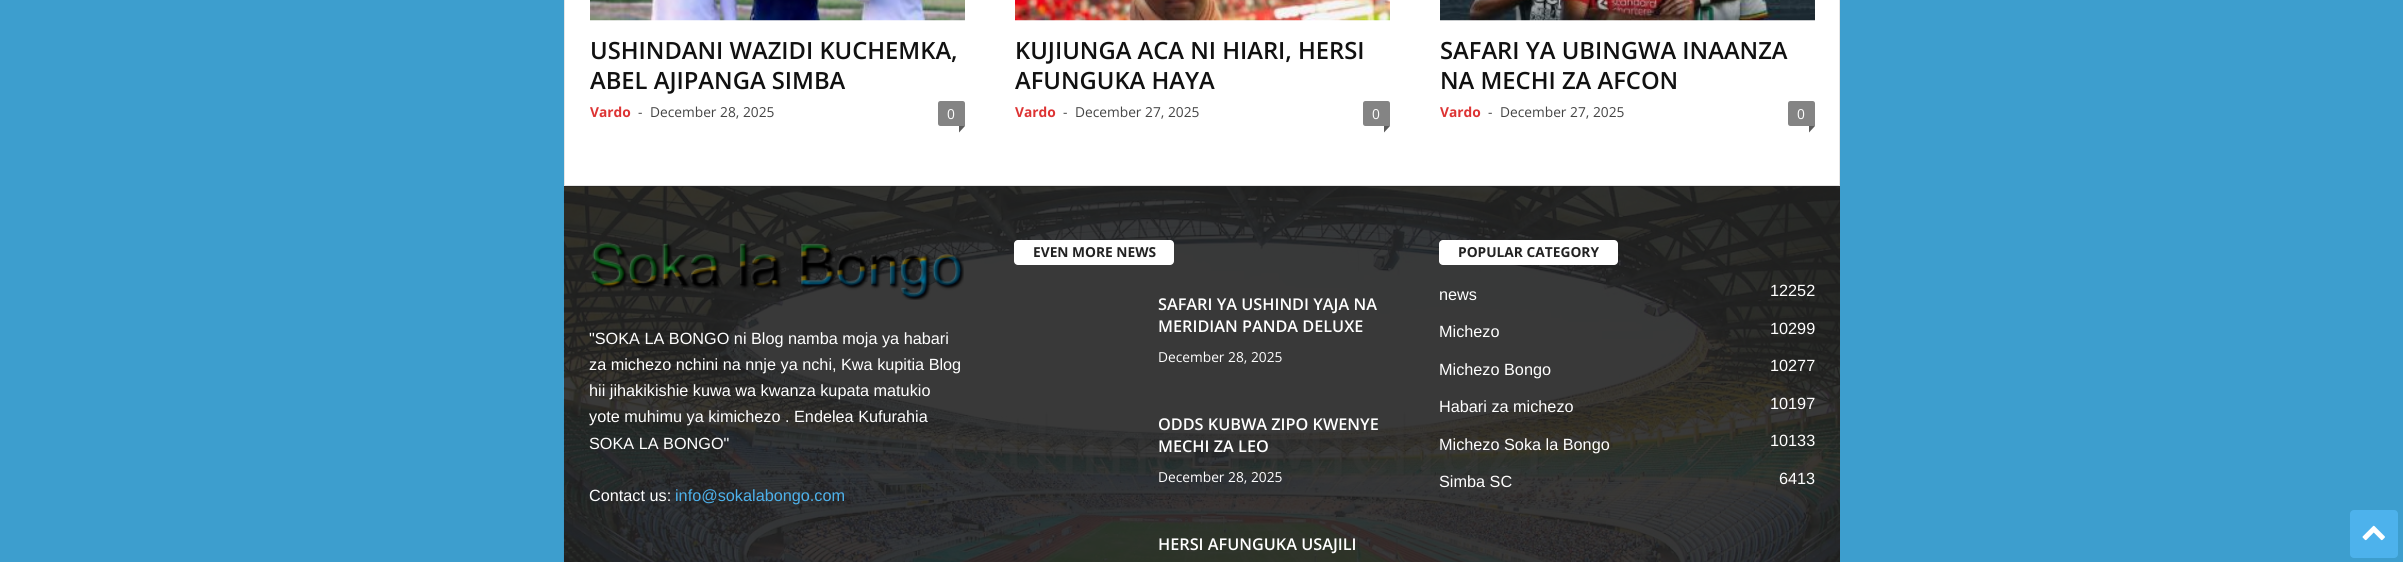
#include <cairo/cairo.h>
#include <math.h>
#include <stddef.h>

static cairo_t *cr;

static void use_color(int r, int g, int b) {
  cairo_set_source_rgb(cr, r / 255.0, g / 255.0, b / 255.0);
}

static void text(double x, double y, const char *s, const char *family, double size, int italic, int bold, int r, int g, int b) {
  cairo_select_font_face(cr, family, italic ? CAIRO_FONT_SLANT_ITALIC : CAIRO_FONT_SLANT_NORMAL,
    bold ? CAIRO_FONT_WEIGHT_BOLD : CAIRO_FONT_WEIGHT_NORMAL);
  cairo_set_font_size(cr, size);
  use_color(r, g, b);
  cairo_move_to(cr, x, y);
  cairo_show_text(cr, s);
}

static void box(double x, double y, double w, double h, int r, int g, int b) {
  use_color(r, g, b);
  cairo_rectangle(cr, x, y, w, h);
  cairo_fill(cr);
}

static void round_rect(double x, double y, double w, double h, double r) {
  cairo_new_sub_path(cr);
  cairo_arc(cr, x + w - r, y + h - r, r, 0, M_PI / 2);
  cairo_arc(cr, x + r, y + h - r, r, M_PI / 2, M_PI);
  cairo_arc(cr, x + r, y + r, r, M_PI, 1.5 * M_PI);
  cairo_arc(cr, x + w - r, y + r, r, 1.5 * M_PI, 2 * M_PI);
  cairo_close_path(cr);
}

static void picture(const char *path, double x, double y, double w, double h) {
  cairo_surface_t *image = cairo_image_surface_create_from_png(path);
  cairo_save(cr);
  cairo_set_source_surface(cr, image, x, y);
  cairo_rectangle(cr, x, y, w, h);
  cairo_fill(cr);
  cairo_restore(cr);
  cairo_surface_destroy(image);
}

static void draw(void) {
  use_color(61, 158, 206);
  cairo_paint(cr);
  box(565, 0, 1274, 185, 255, 255, 255);
  box(564, 185, 1276, 1, 230, 230, 230);
  box(564, 0, 1, 185, 230, 230, 230);
  picture("img_01.png", 590, 0, 375, 21);
  use_color(132, 132, 132);
  cairo_new_path(cr);
  cairo_move_to(cr, 940.5, 101);
  cairo_line_to(cr, 962.5, 101);
  cairo_curve_to(cr, 964, 101, 965, 102, 965, 103.5);
  cairo_line_to(cr, 965, 126);
  cairo_line_to(cr, 940.5, 126);
  cairo_curve_to(cr, 939, 126, 938, 125, 938, 123.5);
  cairo_line_to(cr, 938, 103.5);
  cairo_curve_to(cr, 938, 102, 939, 101, 940.5, 101);
  cairo_close_path(cr);
  cairo_fill(cr);
  use_color(91, 91, 91);
  cairo_new_path(cr);
  cairo_move_to(cr, 959, 126);
  cairo_line_to(cr, 965, 126);
  cairo_line_to(cr, 959, 132.5);
  cairo_close_path(cr);
  cairo_fill(cr);
  picture("img_02.png", 1015, 0, 375, 21);
  use_color(132, 132, 132);
  cairo_new_path(cr);
  cairo_move_to(cr, 1365.5, 101);
  cairo_line_to(cr, 1387.5, 101);
  cairo_curve_to(cr, 1389, 101, 1390, 102, 1390, 103.5);
  cairo_line_to(cr, 1390, 126);
  cairo_line_to(cr, 1365.5, 126);
  cairo_curve_to(cr, 1364, 126, 1363, 125, 1363, 123.5);
  cairo_line_to(cr, 1363, 103.5);
  cairo_curve_to(cr, 1363, 102, 1364, 101, 1365.5, 101);
  cairo_close_path(cr);
  cairo_fill(cr);
  use_color(91, 91, 91);
  cairo_new_path(cr);
  cairo_move_to(cr, 1384, 126);
  cairo_line_to(cr, 1390, 126);
  cairo_line_to(cr, 1384, 132.5);
  cairo_close_path(cr);
  cairo_fill(cr);
  picture("img_03.png", 1440, 0, 375, 21);
  use_color(132, 132, 132);
  cairo_new_path(cr);
  cairo_move_to(cr, 1790.5, 101);
  cairo_line_to(cr, 1812.5, 101);
  cairo_curve_to(cr, 1814, 101, 1815, 102, 1815, 103.5);
  cairo_line_to(cr, 1815, 126);
  cairo_line_to(cr, 1790.5, 126);
  cairo_curve_to(cr, 1789, 126, 1788, 125, 1788, 123.5);
  cairo_line_to(cr, 1788, 103.5);
  cairo_curve_to(cr, 1788, 102, 1789, 101, 1790.5, 101);
  cairo_close_path(cr);
  cairo_fill(cr);
  use_color(91, 91, 91);
  cairo_new_path(cr);
  cairo_move_to(cr, 1809, 126);
  cairo_line_to(cr, 1815, 126);
  cairo_line_to(cr, 1809, 132.5);
  cairo_close_path(cr);
  cairo_fill(cr);
  box(1839, 0, 1, 185, 230, 230, 230);
  box(564, 186, 1276, 376, 34, 34, 34);
  picture("img_04.png", 563, 186, 1277, 376);
  picture("img_05.png", 591, 242, 373, 58);
  use_color(255, 255, 255);
  round_rect(1014, 240, 160, 25, 4);
  cairo_fill(cr);
  round_rect(1439, 240, 179, 25, 4);
  cairo_fill(cr);
  use_color(77, 178, 236);
  round_rect(2350, 510, 48, 48, 4);
  cairo_fill(cr);
  picture("img_06.png", 2362, 525, 23, 16);
  text(590, 59, "USHINDANI WAZIDI KUCHEMKA,", "Open Sans SemiBold", 23.75, 0, 0, 17, 17, 17);
  text(590, 89, "ABEL AJIPANGA SIMBA", "Open Sans SemiBold", 23.75, 0, 0, 17, 17, 17);
  text(590, 117, "Vardo", "Open Sans", 13.75, 0, 1, 221, 51, 51);
  text(638, 117, "-", "Open Sans", 13.75, 0, 0, 68, 68, 68);
  text(650, 117, "December 28, 2025", "Open Sans", 13.75, 0, 0, 68, 68, 68);
  text(947, 119, "0", "Open Sans", 13.75, 0, 0, 255, 255, 255);
  text(1015, 59, "KUJIUNGA ACA NI HIARI, HERSI", "Open Sans SemiBold", 23.75, 0, 0, 17, 17, 17);
  text(1015, 89, "AFUNGUKA HAYA", "Open Sans SemiBold", 23.75, 0, 0, 17, 17, 17);
  text(1015, 117, "Vardo", "Open Sans", 13.75, 0, 1, 221, 51, 51);
  text(1063, 117, "-", "Open Sans", 13.75, 0, 0, 68, 68, 68);
  text(1075, 117, "December 27, 2025", "Open Sans", 13.75, 0, 0, 68, 68, 68);
  text(1372, 119, "0", "Open Sans", 13.75, 0, 0, 255, 255, 255);
  text(1440, 59, "SAFARI YA UBINGWA INAANZA", "Open Sans SemiBold", 23.75, 0, 0, 17, 17, 17);
  text(1440, 89, "NA MECHI ZA AFCON", "Open Sans SemiBold", 23.75, 0, 0, 17, 17, 17);
  text(1440, 117, "Vardo", "Open Sans", 13.75, 0, 1, 221, 51, 51);
  text(1488, 117, "-", "Open Sans", 13.75, 0, 0, 68, 68, 68);
  text(1500, 117, "December 27, 2025", "Open Sans", 13.75, 0, 0, 68, 68, 68);
  text(1797, 119, "0", "Open Sans", 13.75, 0, 0, 255, 255, 255);
  text(589, 344, "\"SOKA LA BONGO ni Blog namba moja ya habari", "Liberation Sans", 16.25, 0, 0, 255, 255, 255);
  text(589, 370, "za michezo nchini na nnje ya nchi, Kwa kupitia Blog", "Liberation Sans", 16.25, 0, 0, 255, 255, 255);
  text(589, 396, "hii jihakikishie kuwa wa kwanza kupata matukio", "Liberation Sans", 16.25, 0, 0, 255, 255, 255);
  text(589, 422, "yote muhimu ya kimichezo . Endelea Kufurahia", "Liberation Sans", 16.25, 0, 0, 255, 255, 255);
  text(589, 449, "SOKA LA BONGO\"", "Liberation Sans", 16.25, 0, 0, 255, 255, 255);
  text(589, 501, "Contact us:", "Liberation Sans", 16.25, 0, 0, 255, 255, 255);
  text(675, 501, "info@sokalabongo.com", "Liberation Sans", 16.25, 0, 0, 77, 178, 236);
  text(1033, 257, "EVEN MORE NEWS", "Open Sans", 13.75, 0, 1, 34, 34, 34);
  text(1158, 310, "SAFARI YA USHINDI YAJA NA", "Open Sans SemiBold", 16.25, 0, 0, 255, 255, 255);
  text(1158, 332, "MERIDIAN PANDA DELUXE", "Open Sans SemiBold", 16.25, 0, 0, 255, 255, 255);
  text(1158, 362, "December 28, 2025", "Open Sans", 13.75, 0, 0, 255, 255, 255);
  text(1158, 430, "ODDS KUBWA ZIPO KWENYE", "Open Sans SemiBold", 16.25, 0, 0, 255, 255, 255);
  text(1158, 452, "MECHI ZA LEO", "Open Sans SemiBold", 16.25, 0, 0, 255, 255, 255);
  text(1158, 482, "December 28, 2025", "Open Sans", 13.75, 0, 0, 255, 255, 255);
  text(1158, 550, "HERSI AFUNGUKA USAJILI", "Open Sans SemiBold", 16.25, 0, 0, 255, 255, 255);
  text(1458, 257, "POPULAR CATEGORY", "Open Sans", 13.75, 0, 1, 34, 34, 34);
  text(1439, 300, "news", "Liberation Sans", 16.25, 0, 0, 255, 255, 255);
  text(1770, 296, "12252", "Liberation Sans", 16.25, 0, 0, 255, 255, 255);
  text(1439, 337, "Michezo", "Liberation Sans", 16.25, 0, 0, 255, 255, 255);
  text(1770, 334, "10299", "Liberation Sans", 16.25, 0, 0, 255, 255, 255);
  text(1439, 375, "Michezo Bongo", "Liberation Sans", 16.25, 0, 0, 255, 255, 255);
  text(1770, 371, "10277", "Liberation Sans", 16.25, 0, 0, 255, 255, 255);
  text(1439, 412, "Habari za michezo", "Liberation Sans", 16.25, 0, 0, 255, 255, 255);
  text(1770, 409, "10197", "Liberation Sans", 16.25, 0, 0, 255, 255, 255);
  text(1439, 450, "Michezo Soka la Bongo", "Liberation Sans", 16.25, 0, 0, 255, 255, 255);
  text(1770, 446, "10133", "Liberation Sans", 16.25, 0, 0, 255, 255, 255);
  text(1439, 487, "Simba SC", "Liberation Sans", 16.25, 0, 0, 255, 255, 255);
  text(1779, 484, "6413", "Liberation Sans", 16.25, 0, 0, 255, 255, 255);
}

int main(void) {
  cairo_surface_t *surface = cairo_image_surface_create(CAIRO_FORMAT_RGB24, 2403, 562);
  cr = cairo_create(surface);
  cairo_font_options_t *options = cairo_font_options_create();
  cairo_font_options_set_hint_metrics(options, CAIRO_HINT_METRICS_OFF);
  cairo_font_options_set_hint_style(options, CAIRO_HINT_STYLE_NONE);
  cairo_set_font_options(cr, options);
  cairo_set_miter_limit(cr, 4);
  draw();
  cairo_surface_write_to_png(surface, "out.png");
  cairo_font_options_destroy(options);
  cairo_destroy(cr);
  cairo_surface_destroy(surface);
  return 0;
}
